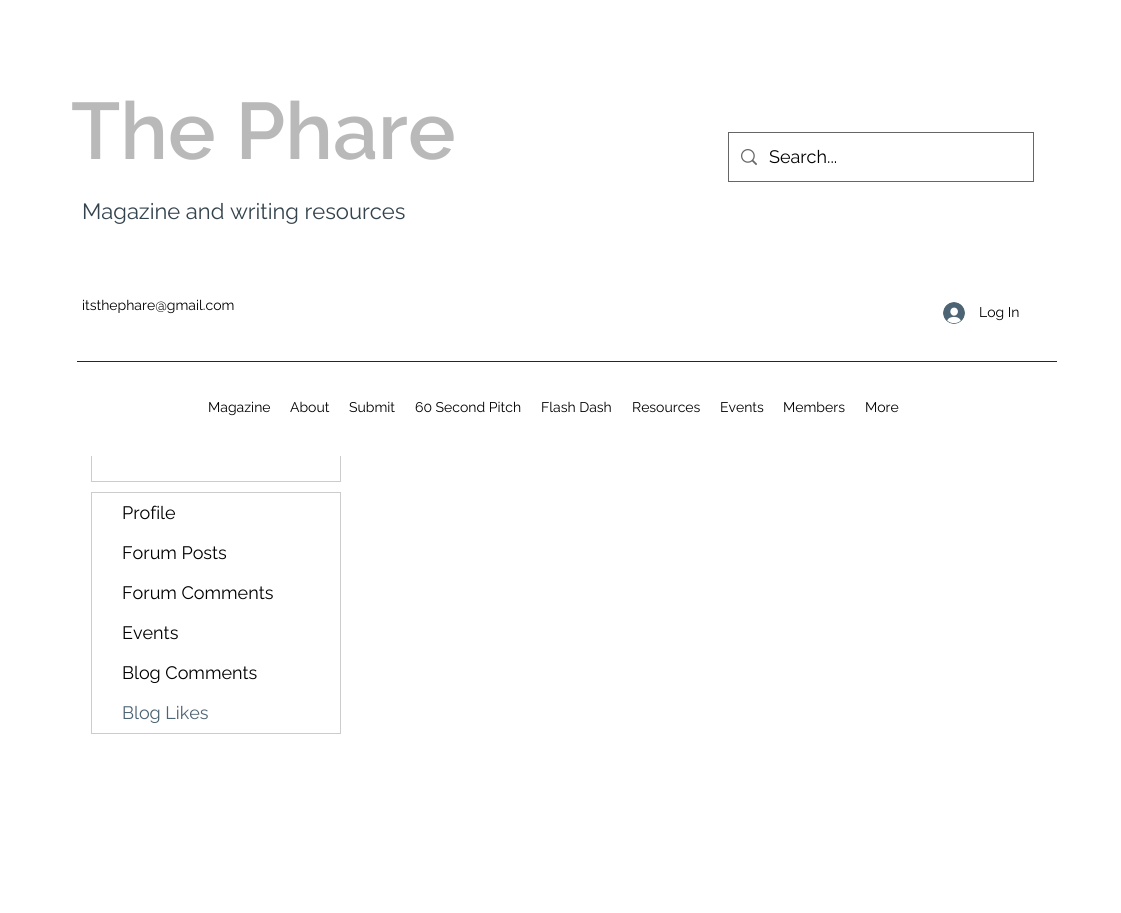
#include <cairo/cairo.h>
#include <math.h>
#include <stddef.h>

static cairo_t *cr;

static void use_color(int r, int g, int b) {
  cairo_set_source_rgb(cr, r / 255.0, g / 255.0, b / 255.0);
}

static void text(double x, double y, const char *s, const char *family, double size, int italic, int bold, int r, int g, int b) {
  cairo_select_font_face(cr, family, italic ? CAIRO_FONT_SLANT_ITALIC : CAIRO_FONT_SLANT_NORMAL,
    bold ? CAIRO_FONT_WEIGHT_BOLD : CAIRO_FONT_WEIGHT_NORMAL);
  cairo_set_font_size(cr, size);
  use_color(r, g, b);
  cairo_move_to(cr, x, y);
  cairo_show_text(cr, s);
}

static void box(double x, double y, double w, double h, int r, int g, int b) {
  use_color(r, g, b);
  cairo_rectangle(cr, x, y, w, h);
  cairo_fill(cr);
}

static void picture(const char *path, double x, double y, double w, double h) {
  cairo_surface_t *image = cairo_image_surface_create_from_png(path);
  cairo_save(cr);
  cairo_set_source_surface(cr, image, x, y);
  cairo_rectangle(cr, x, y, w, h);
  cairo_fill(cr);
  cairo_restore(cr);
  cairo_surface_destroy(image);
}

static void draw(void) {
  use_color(255, 255, 255);
  cairo_paint(cr);
  cairo_rectangle(cr, 728.5, 132.5, 305, 49);
  use_color(102, 102, 102);
  cairo_set_line_width(cr, 1);
  cairo_stroke(cr);
  picture("img_01.png", 741, 149, 16, 16);
  picture("img_02.png", 943, 302, 22, 22);
  cairo_rectangle(cr, 91.5, 248.5, 249, 233);
  use_color(204, 204, 204);
  cairo_stroke(cr);
  box(91, 248, 250, 208, 255, 255, 255);
  box(77, 361, 980, 1, 38, 38, 38);
  cairo_rectangle(cr, 91.5, 492.5, 249, 241);
  use_color(204, 204, 204);
  cairo_stroke(cr);
  text(71, 159, "The Phare", "Raleway SemiBold", 80, 0, 0, 185, 185, 185);
  text(769, 163, "Search...", "Raleway", 18, 0, 0, 0, 0, 0);
  text(82, 219, "Magazine and writing resources", "Raleway", 22, 0, 0, 51, 67, 77);
  text(82, 310, "itsthephare@gmail.com", "Raleway", 14, 0, 0, 0, 0, 0);
  text(979, 317, "Log In", "Raleway", 14, 0, 0, 0, 0, 0);
  text(208, 412, "Magazine", "Raleway", 14, 0, 0, 0, 0, 0);
  text(290, 412, "About", "Raleway", 14, 0, 0, 0, 0, 0);
  text(349, 412, "Submit", "Raleway", 14, 0, 0, 0, 0, 0);
  text(415, 412, "60 Second Pitch", "Raleway", 14, 0, 0, 0, 0, 0);
  text(541, 412, "Flash Dash", "Raleway", 14, 0, 0, 0, 0, 0);
  text(632, 412, "Resources", "Raleway", 14, 0, 0, 0, 0, 0);
  text(720, 412, "Events", "Raleway", 14, 0, 0, 0, 0, 0);
  text(783, 412, "Members", "Raleway", 14, 0, 0, 0, 0, 0);
  text(865, 412, "More", "Raleway", 14, 0, 0, 0, 0, 0);
  text(122, 519, "Profile", "Raleway", 18, 0, 0, 0, 0, 0);
  text(122, 559, "Forum Posts", "Raleway", 18, 0, 0, 0, 0, 0);
  text(122, 599, "Forum Comments", "Raleway", 18, 0, 0, 0, 0, 0);
  text(122, 639, "Events", "Raleway", 18, 0, 0, 0, 0, 0);
  text(122, 679, "Blog Comments", "Raleway", 18, 0, 0, 0, 0, 0);
  text(122, 719, "Blog Likes", "Raleway", 18, 0, 0, 76, 100, 116);
}

int main(void) {
  cairo_surface_t *surface = cairo_image_surface_create(CAIRO_FORMAT_RGB24, 1121, 913);
  cr = cairo_create(surface);
  cairo_font_options_t *options = cairo_font_options_create();
  cairo_font_options_set_hint_metrics(options, CAIRO_HINT_METRICS_OFF);
  cairo_font_options_set_hint_style(options, CAIRO_HINT_STYLE_NONE);
  cairo_set_font_options(cr, options);
  cairo_set_miter_limit(cr, 4);
  draw();
  cairo_surface_write_to_png(surface, "out.png");
  cairo_font_options_destroy(options);
  cairo_destroy(cr);
  cairo_surface_destroy(surface);
  return 0;
}
